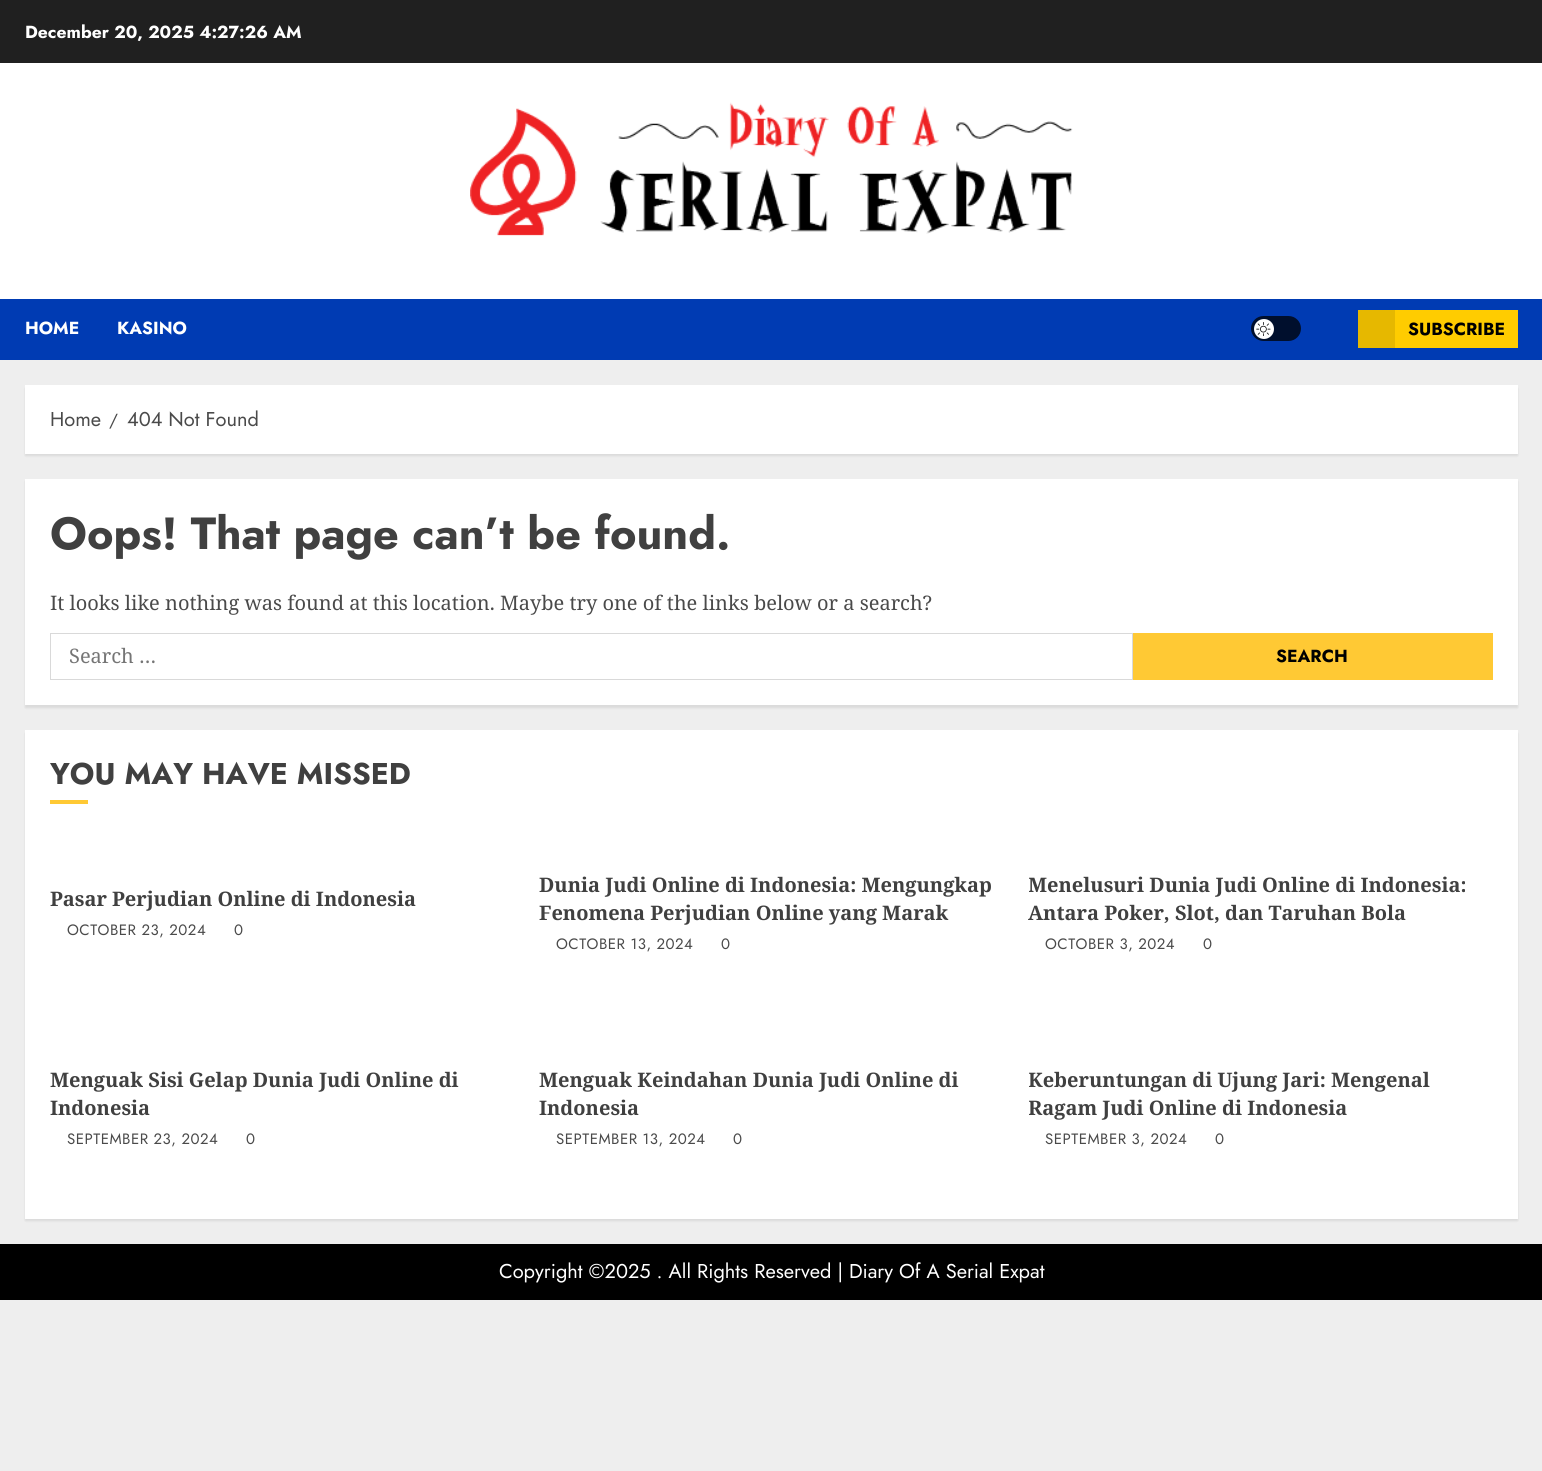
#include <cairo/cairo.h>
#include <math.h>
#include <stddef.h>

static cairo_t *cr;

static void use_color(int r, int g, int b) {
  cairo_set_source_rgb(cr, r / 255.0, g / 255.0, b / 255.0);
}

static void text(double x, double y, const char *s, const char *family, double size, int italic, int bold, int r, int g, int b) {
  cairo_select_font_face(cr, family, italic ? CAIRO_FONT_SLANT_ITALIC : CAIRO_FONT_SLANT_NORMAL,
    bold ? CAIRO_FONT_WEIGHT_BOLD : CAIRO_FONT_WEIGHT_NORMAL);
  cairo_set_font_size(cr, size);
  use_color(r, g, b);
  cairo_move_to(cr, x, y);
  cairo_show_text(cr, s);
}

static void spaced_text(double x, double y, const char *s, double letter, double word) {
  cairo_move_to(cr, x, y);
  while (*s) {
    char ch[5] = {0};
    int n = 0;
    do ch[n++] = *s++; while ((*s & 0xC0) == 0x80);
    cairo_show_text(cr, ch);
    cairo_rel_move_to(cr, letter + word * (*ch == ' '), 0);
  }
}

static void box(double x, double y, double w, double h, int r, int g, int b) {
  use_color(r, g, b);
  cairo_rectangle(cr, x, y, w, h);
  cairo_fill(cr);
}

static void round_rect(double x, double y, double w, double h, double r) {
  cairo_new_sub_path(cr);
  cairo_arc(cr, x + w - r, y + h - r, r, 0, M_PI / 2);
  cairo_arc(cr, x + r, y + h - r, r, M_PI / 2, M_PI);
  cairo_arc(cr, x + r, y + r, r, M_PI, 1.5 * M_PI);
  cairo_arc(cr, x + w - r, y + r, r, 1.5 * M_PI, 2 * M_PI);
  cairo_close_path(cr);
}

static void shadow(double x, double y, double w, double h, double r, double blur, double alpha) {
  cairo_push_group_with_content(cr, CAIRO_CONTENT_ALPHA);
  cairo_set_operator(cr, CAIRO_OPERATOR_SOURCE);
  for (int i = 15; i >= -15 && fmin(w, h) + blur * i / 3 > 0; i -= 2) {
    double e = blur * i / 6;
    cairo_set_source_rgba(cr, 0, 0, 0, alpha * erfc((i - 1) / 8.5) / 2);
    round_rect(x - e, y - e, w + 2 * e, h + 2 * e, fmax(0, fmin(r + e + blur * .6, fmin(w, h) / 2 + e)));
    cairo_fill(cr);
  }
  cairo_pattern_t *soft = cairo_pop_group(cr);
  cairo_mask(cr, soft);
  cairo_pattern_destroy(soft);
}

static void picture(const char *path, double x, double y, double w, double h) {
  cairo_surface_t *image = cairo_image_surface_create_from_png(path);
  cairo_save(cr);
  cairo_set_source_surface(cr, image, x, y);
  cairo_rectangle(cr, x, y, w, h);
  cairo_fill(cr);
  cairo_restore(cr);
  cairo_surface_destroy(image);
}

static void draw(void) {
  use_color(238, 238, 238);
  cairo_paint(cr);
  box(0, 0, 1542, 63, 32, 32, 32);
  box(0, 63, 1542, 236, 255, 255, 255);
  picture("img_01.png", 470, 102, 603, 134);
  box(0, 299, 1542, 61, 0, 59, 179);
  use_color(0, 15, 45);
  round_rect(1251, 316, 50, 25, 12.5);
  cairo_fill(cr);
  use_color(255, 255, 255);
  cairo_arc(cr, 1264, 329, 10, 0, 2 * M_PI);
  cairo_fill(cr);
  picture("img_02.png", 1256, 322, 15, 14);
  box(1395, 310, 123, 38, 255, 204, 0);
  box(1358, 310, 37, 38, 230, 184, 0);
  use_color(0, 0, 0);
  shadow(25, 388, 1493, 68, 0, 1, 0.08);
  box(25, 385, 1493, 69, 255, 255, 255);
  use_color(0, 0, 0);
  shadow(25, 481, 1493, 227, 0, 1, 0.08);
  box(25, 479, 1493, 226, 255, 255, 255);
  cairo_rectangle(cr, 50.5, 633.5, 1082, 46);
  use_color(217, 217, 217);
  cairo_set_line_width(cr, 1);
  cairo_stroke(cr);
  box(1133, 633, 360, 47, 255, 201, 52);
  use_color(0, 0, 0);
  shadow(25, 733, 1493, 488, 0, 1, 0.08);
  box(25, 730, 1493, 489, 255, 255, 255);
  box(50, 800, 38, 4, 255, 201, 52);
  box(0, 1244, 1542, 56, 0, 0, 0);
  text(25, 38, "December 20, 2025 4:27:26 AM", "Jost", 17.5, 0, 1, 255, 255, 255);
  text(25, 334, "HOME", "Jost", 17.5, 0, 1, 255, 255, 255);
  text(117, 334, "KASINO", "Jost", 17.5, 0, 1, 255, 255, 255);
  text(1408, 335, "SUBSCRIBE", "Jost", 17.5, 0, 1, 0, 0, 0);
  text(50, 426, "Home", "Jost", 20, 0, 0, 74, 74, 74);
  text(109, 426, "/", "Jost", 17.5, 0, 0, 74, 74, 74);
  text(127, 426, "404 Not Found", "Jost", 20, 0, 0, 74, 74, 74);
  text(50, 549, "Oops! That page can’t be found.", "Jost", 45, 0, 1, 64, 64, 64);
  text(50, 610, "It looks like nothing was found at this location. Maybe try one of the links below or a search?", "Noto Serif", 20, 0, 0, 74, 74, 74);
  text(69, 663, "Search …", "Noto Serif", 20, 0, 0, 117, 117, 117);
  text(1276, 662, "SEARCH", "Jost", 17.5, 0, 1, 0, 0, 0);
  text(50, 784, "YOU MAY HAVE MISSED", "Jost", 30, 0, 1, 64, 64, 64);
  text(50, 906, "Pasar Perjudian Online di Indonesia", "Noto Serif", 20, 0, 1, 64, 64, 64);
  cairo_select_font_face(cr, "Jost", CAIRO_FONT_SLANT_NORMAL, CAIRO_FONT_WEIGHT_NORMAL);
  cairo_set_font_size(cr, 15);
  use_color(74, 74, 74);
  spaced_text(67, 935, "OCTOBER 23, 2024", 0.5, 0);
  spaced_text(234, 935, "0", 0.5, 0);
  text(539, 892, "Dunia Judi Online di Indonesia: Mengungkap", "Noto Serif", 20, 0, 1, 64, 64, 64);
  text(539, 920, "Fenomena Perjudian Online yang Marak", "Noto Serif", 20, 0, 1, 64, 64, 64);
  cairo_select_font_face(cr, "Jost", CAIRO_FONT_SLANT_NORMAL, CAIRO_FONT_WEIGHT_NORMAL);
  cairo_set_font_size(cr, 15);
  use_color(74, 74, 74);
  spaced_text(556, 949, "OCTOBER 13, 2024", 0.5, 0);
  spaced_text(721, 949, "0", 0.5, 0);
  cairo_save(cr);
  cairo_rectangle(cr, 1029, 870, 464, 86);
  cairo_clip(cr);
  text(1028, 892, "Menelusuri Dunia Judi Online di Indonesia:", "Noto Serif", 20, 0, 1, 64, 64, 64);
  cairo_restore(cr);
  text(1028, 920, "Antara Poker, Slot, dan Taruhan Bola", "Noto Serif", 20, 0, 1, 64, 64, 64);
  cairo_select_font_face(cr, "Jost", CAIRO_FONT_SLANT_NORMAL, CAIRO_FONT_WEIGHT_NORMAL);
  cairo_set_font_size(cr, 15);
  use_color(74, 74, 74);
  spaced_text(1045, 949, "OCTOBER 3, 2024", 0.5, 0);
  spaced_text(1203, 949, "0", 0.5, 0);
  text(50, 1087, "Menguak Sisi Gelap Dunia Judi Online di", "Noto Serif", 20, 0, 1, 64, 64, 64);
  text(50, 1115, "Indonesia", "Noto Serif", 20, 0, 1, 64, 64, 64);
  cairo_select_font_face(cr, "Jost", CAIRO_FONT_SLANT_NORMAL, CAIRO_FONT_WEIGHT_NORMAL);
  cairo_set_font_size(cr, 15);
  use_color(74, 74, 74);
  spaced_text(67, 1144, "SEPTEMBER 23, 2024", 0.5, 0);
  spaced_text(246, 1144, "0", 0.5, 0);
  text(539, 1087, "Menguak Keindahan Dunia Judi Online di", "Noto Serif", 20, 0, 1, 64, 64, 64);
  text(539, 1115, "Indonesia", "Noto Serif", 20, 0, 1, 64, 64, 64);
  cairo_select_font_face(cr, "Jost", CAIRO_FONT_SLANT_NORMAL, CAIRO_FONT_WEIGHT_NORMAL);
  cairo_set_font_size(cr, 15);
  use_color(74, 74, 74);
  spaced_text(556, 1144, "SEPTEMBER 13, 2024", 0.5, 0);
  spaced_text(733, 1144, "0", 0.5, 0);
  cairo_save(cr);
  cairo_rectangle(cr, 1029, 1065, 464, 86);
  cairo_clip(cr);
  text(1028, 1087, "Keberuntungan di Ujung Jari: Mengenal", "Noto Serif", 20, 0, 1, 64, 64, 64);
  text(1028, 1115, "Ragam Judi Online di Indonesia", "Noto Serif", 20, 0, 1, 64, 64, 64);
  cairo_restore(cr);
  spaced_text(1045, 1144, "SEPTEMBER 3, 2024", 0.5, 0);
  spaced_text(1215, 1144, "0", 0.5, 0);
  text(499, 1278, "Copyright ©2025 . All Rights Reserved | Diary Of A Serial Expat", "Jost", 20, 0, 0, 255, 255, 255);
}

int main(void) {
  cairo_surface_t *surface = cairo_image_surface_create(CAIRO_FORMAT_RGB24, 1542, 1471);
  cr = cairo_create(surface);
  cairo_font_options_t *options = cairo_font_options_create();
  cairo_font_options_set_hint_metrics(options, CAIRO_HINT_METRICS_OFF);
  cairo_font_options_set_hint_style(options, CAIRO_HINT_STYLE_NONE);
  cairo_set_font_options(cr, options);
  cairo_set_miter_limit(cr, 4);
  draw();
  cairo_surface_write_to_png(surface, "out.png");
  cairo_font_options_destroy(options);
  cairo_destroy(cr);
  cairo_surface_destroy(surface);
  return 0;
}
